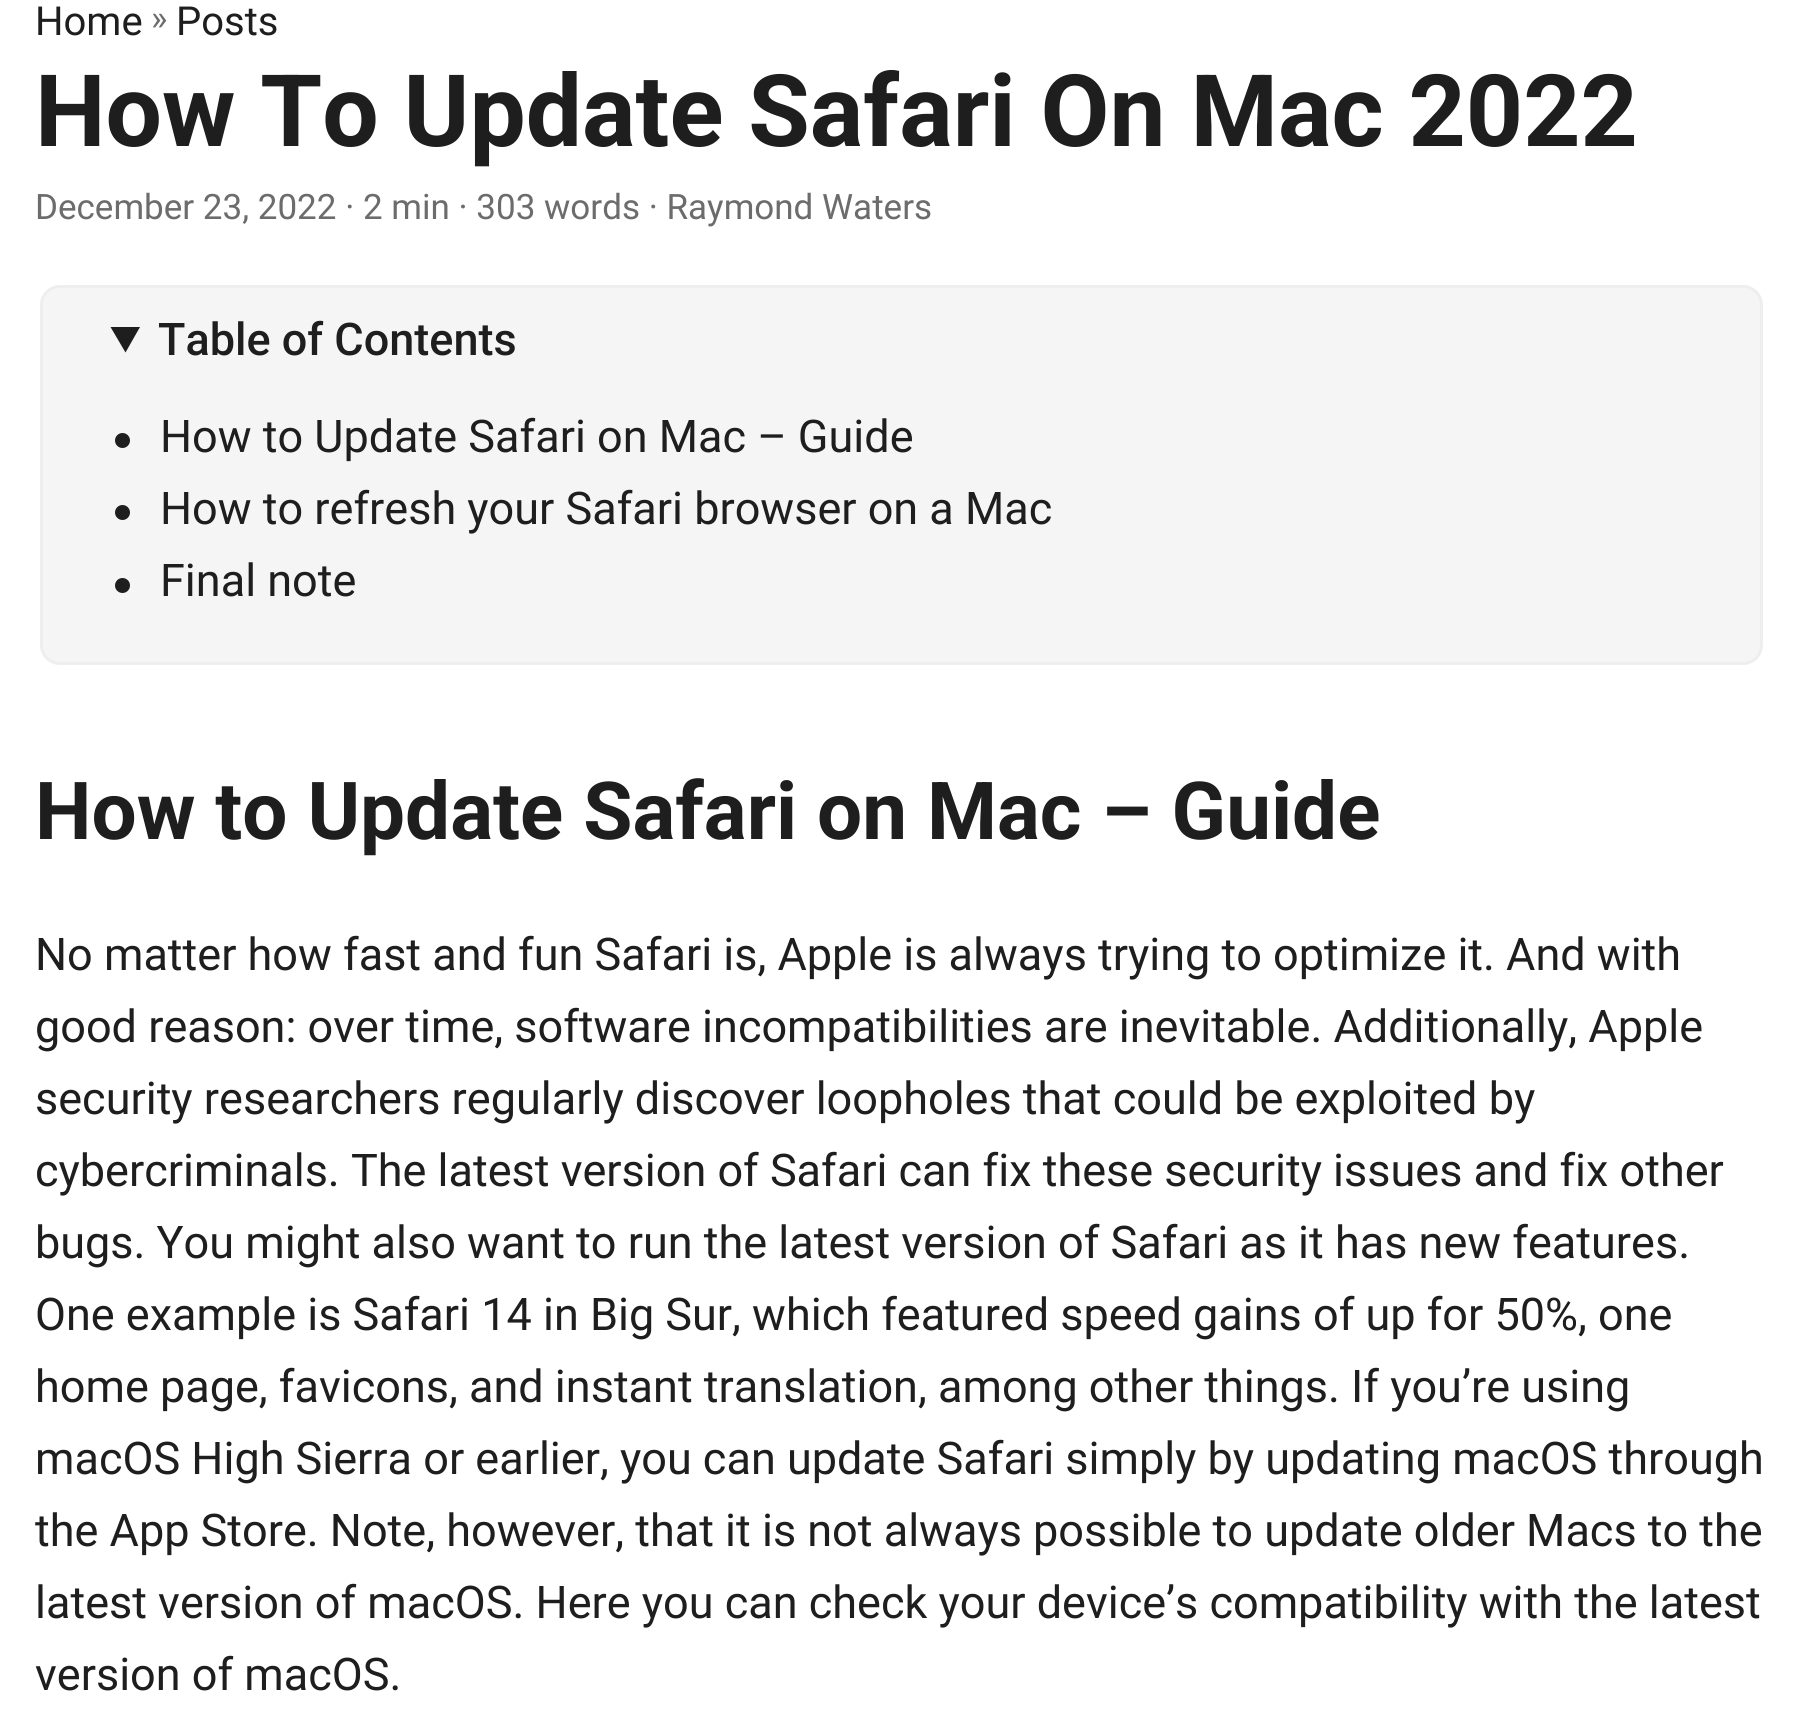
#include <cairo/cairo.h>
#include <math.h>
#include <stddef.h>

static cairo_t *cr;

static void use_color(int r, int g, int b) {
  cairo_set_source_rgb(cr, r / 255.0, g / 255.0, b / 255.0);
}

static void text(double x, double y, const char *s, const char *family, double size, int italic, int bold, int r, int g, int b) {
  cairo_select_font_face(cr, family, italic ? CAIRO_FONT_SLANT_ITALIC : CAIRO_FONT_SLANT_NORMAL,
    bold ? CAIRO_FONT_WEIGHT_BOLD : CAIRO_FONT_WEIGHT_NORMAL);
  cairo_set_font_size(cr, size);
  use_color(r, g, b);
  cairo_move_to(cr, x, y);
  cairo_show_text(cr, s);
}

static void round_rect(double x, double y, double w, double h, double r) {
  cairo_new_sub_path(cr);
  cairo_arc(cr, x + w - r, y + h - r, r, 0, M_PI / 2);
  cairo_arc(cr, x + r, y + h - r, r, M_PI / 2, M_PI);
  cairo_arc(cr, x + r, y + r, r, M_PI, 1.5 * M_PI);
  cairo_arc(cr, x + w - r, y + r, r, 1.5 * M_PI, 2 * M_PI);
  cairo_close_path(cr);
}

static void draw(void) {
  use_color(255, 255, 255);
  cairo_paint(cr);
  use_color(245, 245, 245);
  round_rect(41.5, 286.5, 1720, 377, 18.5);
  cairo_fill_preserve(cr);
  use_color(238, 238, 238);
  cairo_set_line_width(cr, 3);
  cairo_stroke(cr);
  use_color(30, 30, 30);
  cairo_new_path(cr);
  cairo_move_to(cr, 110.5, 327);
  cairo_line_to(cr, 140, 327);
  cairo_line_to(cr, 125.5, 352.5);
  cairo_close_path(cr);
  cairo_fill(cr);
  cairo_arc(cr, 122.5, 440.5, 7.5, 0, 2 * M_PI);
  cairo_fill(cr);
  cairo_arc(cr, 122.5, 512.5, 7.5, 0, 2 * M_PI);
  cairo_fill(cr);
  cairo_arc(cr, 122.5, 585.5, 7.5, 0, 2 * M_PI);
  cairo_fill(cr);
  text(35, 35, "Home", "Roboto", 40, 0, 0, 30, 30, 30);
  text(151, 30, "»", "Roboto", 35, 0, 0, 108, 108, 108);
  text(176, 35, "Posts", "Roboto", 40, 0, 0, 30, 30, 30);
  text(35, 146, "How To Update Safari On Mac 2022", "Roboto", 100, 0, 1, 30, 30, 30);
  text(35, 219, "December 23, 2022 · 2 min · 303 words · Raymond Waters", "Roboto", 35, 0, 0, 108, 108, 108);
  text(158, 355, "Table of Contents", "Roboto Medium", 45, 0, 0, 30, 30, 30);
  text(160, 452, "How to Update Safari on Mac – Guide", "Roboto", 45, 0, 0, 30, 30, 30);
  text(160, 524, "How to refresh your Safari browser on a Mac", "Roboto", 45, 0, 0, 30, 30, 30);
  text(160, 596, "Final note", "Roboto", 45, 0, 0, 30, 30, 30);
  text(35, 839, "How to Update Safari on Mac – Guide", "Roboto", 80, 0, 1, 30, 30, 30);
  text(35, 970, "No matter how fast and fun Safari is, Apple is always trying to optimize it. And with", "Roboto", 45, 0, 0, 30, 30, 30);
  text(35, 1042, "good reason: over time, software incompatibilities are inevitable. Additionally, Apple", "Roboto", 45, 0, 0, 30, 30, 30);
  text(35, 1114, "security researchers regularly discover loopholes that could be exploited by", "Roboto", 45, 0, 0, 30, 30, 30);
  text(35, 1186, "cybercriminals. The latest version of Safari can fix these security issues and fix other", "Roboto", 45, 0, 0, 30, 30, 30);
  text(35, 1258, "bugs. You might also want to run the latest version of Safari as it has new features.", "Roboto", 45, 0, 0, 30, 30, 30);
  text(35, 1330, "One example is Safari 14 in Big Sur, which featured speed gains of up for 50%, one", "Roboto", 45, 0, 0, 30, 30, 30);
  text(35, 1402, "home page, favicons, and instant translation, among other things. If you’re using", "Roboto", 45, 0, 0, 30, 30, 30);
  text(35, 1474, "macOS High Sierra or earlier, you can update Safari simply by updating macOS through", "Roboto", 45, 0, 0, 30, 30, 30);
  text(35, 1546, "the App Store. Note, however, that it is not always possible to update older Macs to the", "Roboto", 45, 0, 0, 30, 30, 30);
  text(35, 1618, "latest version of macOS. Here you can check your device’s compatibility with the latest", "Roboto", 45, 0, 0, 30, 30, 30);
  text(35, 1690, "version of macOS.", "Roboto", 45, 0, 0, 30, 30, 30);
}

int main(void) {
  cairo_surface_t *surface = cairo_image_surface_create(CAIRO_FORMAT_RGB24, 1801, 1718);
  cr = cairo_create(surface);
  cairo_font_options_t *options = cairo_font_options_create();
  cairo_font_options_set_hint_metrics(options, CAIRO_HINT_METRICS_OFF);
  cairo_font_options_set_hint_style(options, CAIRO_HINT_STYLE_NONE);
  cairo_set_font_options(cr, options);
  cairo_set_miter_limit(cr, 4);
  draw();
  cairo_surface_write_to_png(surface, "out.png");
  cairo_font_options_destroy(options);
  cairo_destroy(cr);
  cairo_surface_destroy(surface);
  return 0;
}
